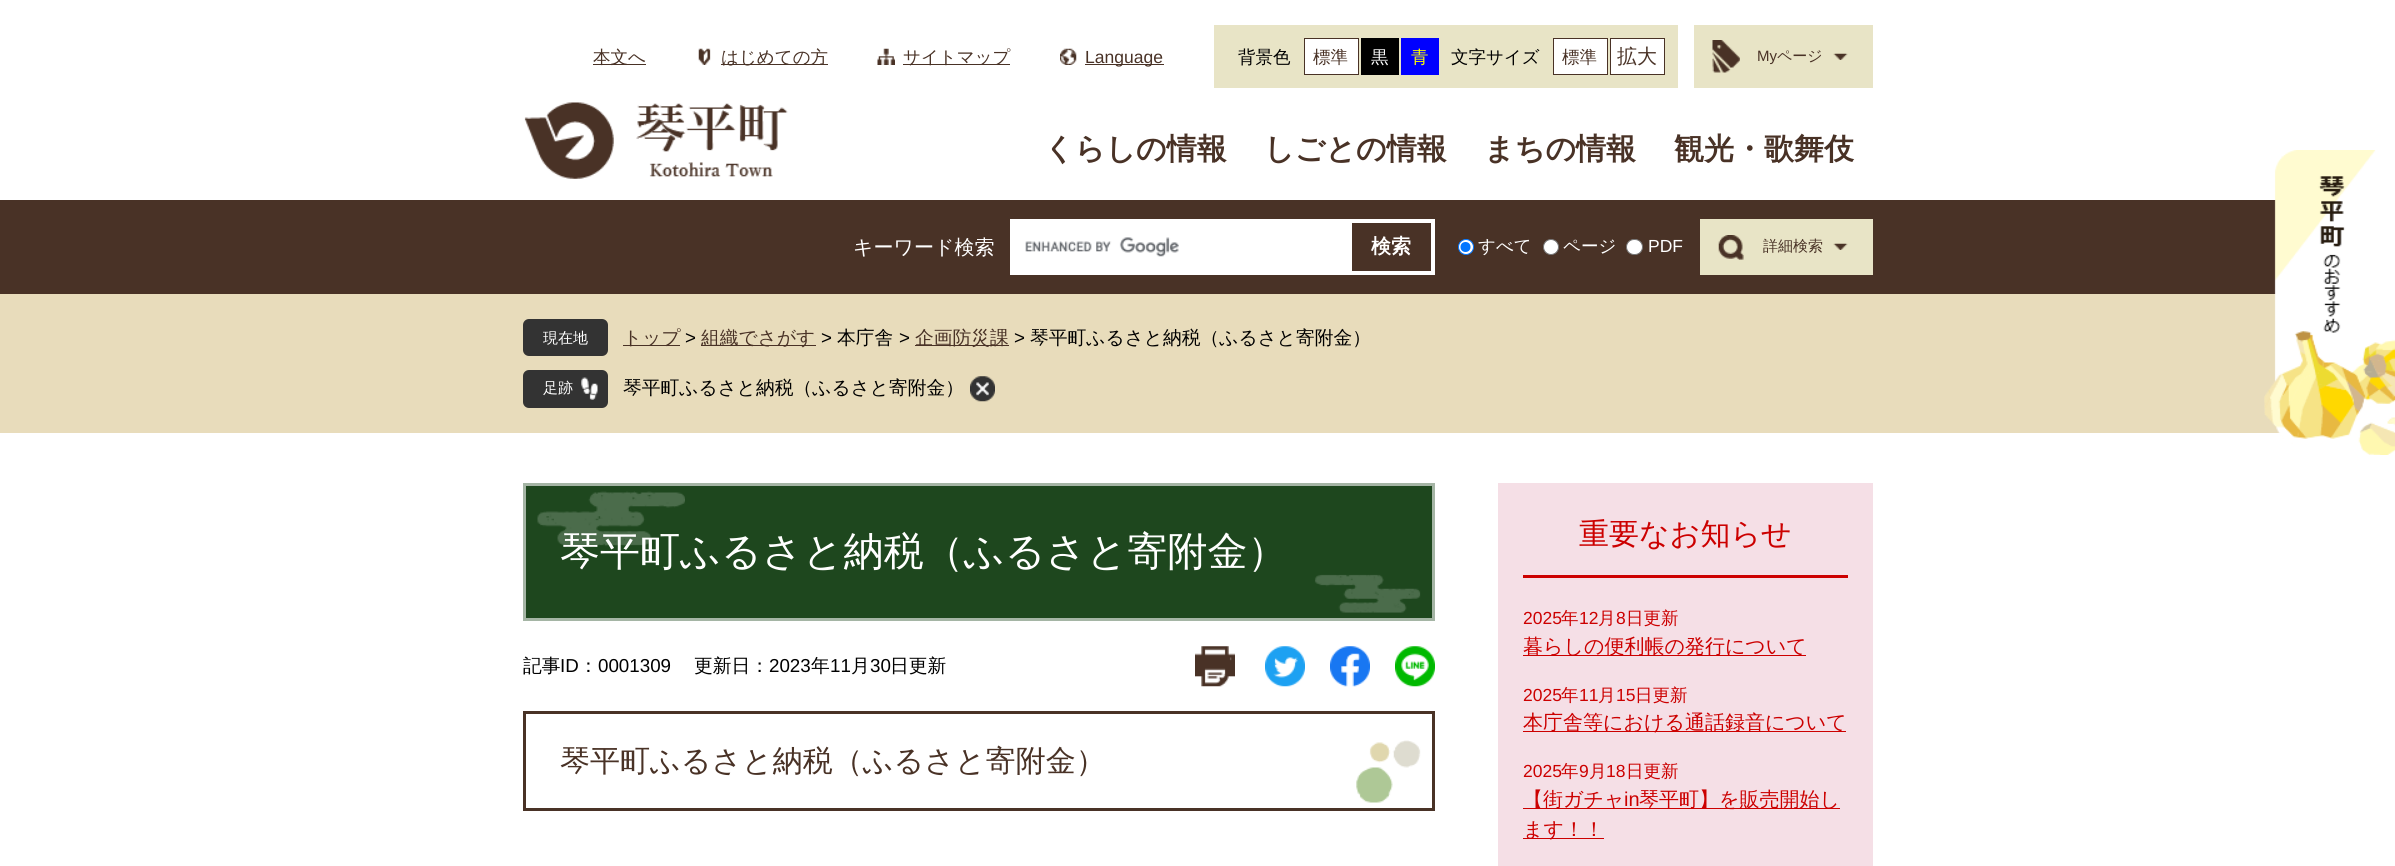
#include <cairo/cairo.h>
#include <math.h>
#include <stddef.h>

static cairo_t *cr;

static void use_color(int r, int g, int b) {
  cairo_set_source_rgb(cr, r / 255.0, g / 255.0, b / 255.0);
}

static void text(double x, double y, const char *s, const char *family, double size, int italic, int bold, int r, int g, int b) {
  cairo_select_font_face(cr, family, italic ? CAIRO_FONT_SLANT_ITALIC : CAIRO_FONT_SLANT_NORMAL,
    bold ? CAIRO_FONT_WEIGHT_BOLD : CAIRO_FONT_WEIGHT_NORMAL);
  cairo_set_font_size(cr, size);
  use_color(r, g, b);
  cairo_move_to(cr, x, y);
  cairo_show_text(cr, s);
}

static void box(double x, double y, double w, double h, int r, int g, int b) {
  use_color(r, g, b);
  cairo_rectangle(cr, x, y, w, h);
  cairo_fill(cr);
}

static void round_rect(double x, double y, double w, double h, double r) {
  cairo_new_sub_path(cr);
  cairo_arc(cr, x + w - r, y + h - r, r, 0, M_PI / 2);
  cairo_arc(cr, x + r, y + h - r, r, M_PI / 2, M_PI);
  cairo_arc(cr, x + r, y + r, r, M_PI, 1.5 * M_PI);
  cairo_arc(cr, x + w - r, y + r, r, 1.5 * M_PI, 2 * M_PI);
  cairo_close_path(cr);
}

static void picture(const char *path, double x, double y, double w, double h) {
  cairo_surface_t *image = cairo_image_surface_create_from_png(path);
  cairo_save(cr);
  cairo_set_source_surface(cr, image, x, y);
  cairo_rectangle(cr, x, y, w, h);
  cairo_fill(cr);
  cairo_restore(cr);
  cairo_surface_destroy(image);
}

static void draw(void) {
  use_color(255, 255, 255);
  cairo_paint(cr);
  box(593, 64, 53, 1, 73, 50, 38);
  picture("img_01.png", 698, 48, 13, 17);
  box(721, 64, 107, 1, 73, 50, 38);
  picture("img_02.png", 877, 48, 18, 17);
  box(903, 64, 107, 1, 73, 50, 38);
  picture("img_03.png", 1060, 48, 17, 17);
  box(1085, 64, 79, 1, 73, 50, 38);
  box(1214, 25, 464, 63, 232, 228, 198);
  use_color(255, 255, 255);
  cairo_rectangle(cr, 1304.5, 38.5, 54, 36);
  cairo_fill_preserve(cr);
  use_color(73, 50, 38);
  cairo_set_line_width(cr, 1);
  cairo_stroke(cr);
  box(1361, 38, 38, 37, 0, 0, 0);
  box(1401, 38, 38, 37, 0, 0, 255);
  use_color(255, 255, 255);
  cairo_rectangle(cr, 1553.5, 38.5, 54, 36);
  cairo_fill_preserve(cr);
  use_color(73, 50, 38);
  cairo_stroke(cr);
  use_color(255, 255, 255);
  cairo_rectangle(cr, 1610.5, 38.5, 54, 36);
  cairo_fill_preserve(cr);
  use_color(73, 50, 38);
  cairo_stroke(cr);
  box(1694, 25, 179, 63, 232, 228, 198);
  picture("img_04.png", 1712, 40, 28, 33);
  picture("img_05.png", 1833, 53, 15, 7);
  picture("img_06.png", 524, 102, 264, 77);
  box(0, 200, 2276, 94, 73, 50, 38);
  box(1010, 219, 338, 56, 255, 255, 255);
  picture("img_07.png", 1025, 237, 154, 20);
  cairo_rectangle(cr, 1350, 221, 83, 52);
  cairo_set_line_width(cr, 4);
  cairo_stroke(cr);
  cairo_arc(cr, 1466, 247, 7.5, 0, 2 * M_PI);
  cairo_fill_preserve(cr);
  use_color(0, 117, 255);
  cairo_set_line_width(cr, 1);
  cairo_stroke(cr);
  cairo_arc(cr, 1465.5, 247, 5, 0, 2 * M_PI);
  cairo_fill(cr);
  use_color(255, 255, 255);
  cairo_arc(cr, 1551, 247, 7.5, 0, 2 * M_PI);
  cairo_fill_preserve(cr);
  use_color(118, 118, 118);
  cairo_stroke(cr);
  use_color(255, 255, 255);
  round_rect(1626.5, 239.5, 16, 15, 7.5);
  cairo_fill_preserve(cr);
  use_color(118, 118, 118);
  cairo_stroke(cr);
  box(1700, 219, 173, 56, 232, 228, 198);
  picture("img_08.png", 1718, 235, 26, 25);
  picture("img_05.png", 1833, 243, 15, 7);
  box(0, 294, 2395, 139, 232, 220, 187);
  picture("img_09.png", 2264, 150, 131, 305);
  use_color(51, 51, 51);
  round_rect(523, 319, 85, 37, 6);
  cairo_fill(cr);
  box(623, 345, 57, 1, 73, 50, 38);
  box(701, 345, 115, 1, 73, 50, 38);
  box(915, 345, 94, 1, 73, 50, 38);
  use_color(51, 51, 51);
  round_rect(523, 370, 85, 38, 6);
  cairo_fill(cr);
  picture("img_10.png", 581, 377, 17, 23);
  picture("img_11.png", 970, 376, 25, 26);
  box(526, 486, 906, 132, 30, 71, 30);
  picture("img_12.png", 537, 491, 884, 122);
  cairo_rectangle(cr, 524.5, 484.5, 909, 135);
  use_color(165, 181, 165);
  cairo_set_line_width(cr, 3);
  cairo_stroke(cr);
  picture("img_13.png", 1195, 646, 40, 41);
  picture("img_14.png", 1265, 646, 40, 41);
  picture("img_15.png", 1330, 646, 40, 41);
  picture("img_16.png", 1395, 646, 40, 41);
  picture("img_17.png", 1356, 740, 65, 63);
  cairo_rectangle(cr, 524.5, 712.5, 909, 97);
  use_color(73, 50, 38);
  cairo_stroke(cr);
  box(1498, 483, 375, 383, 245, 223, 230);
  box(1523, 575, 325, 3, 204, 0, 0);
  box(1523, 655, 283, 1, 204, 0, 0);
  box(1523, 731, 323, 1, 204, 0, 0);
  box(1523, 808, 317, 1, 204, 0, 0);
  box(1523, 838, 81, 1, 204, 0, 0);
  text(593, 63, "本文へ", "WenQuanYi Zen Hei Medium", 17.5, 0, 0, 73, 50, 38);
  text(721, 63, "はじめての方", "WenQuanYi Zen Hei Medium", 17.5, 0, 0, 73, 50, 38);
  text(903, 63, "サイトマップ", "WenQuanYi Zen Hei Medium", 17.5, 0, 0, 73, 50, 38);
  text(1085, 63, "Language", "Liberation Sans", 17.5, 0, 0, 73, 50, 38);
  text(1238, 63, "背景色", "WenQuanYi Zen Hei Medium", 17.5, 0, 0, 0, 0, 0);
  text(1313, 63, "標準", "WenQuanYi Zen Hei Medium", 17.5, 0, 0, 73, 50, 38);
  text(1371, 63, "黒", "WenQuanYi Zen Hei Medium", 17.5, 0, 0, 255, 255, 255);
  text(1411, 63, "青", "WenQuanYi Zen Hei Medium", 17.5, 0, 0, 255, 255, 0);
  text(1451, 63, "文字サイズ", "WenQuanYi Zen Hei Medium", 17.5, 0, 0, 0, 0, 0);
  text(1562, 63, "標準", "WenQuanYi Zen Hei Medium", 17.5, 0, 0, 73, 50, 38);
  text(1617, 63, "拡大", "WenQuanYi Zen Hei Medium", 20, 0, 0, 73, 50, 38);
  text(1757, 61, "My", "Liberation Sans", 15, 0, 0, 73, 50, 38);
  text(1777, 61, "ページ", "WenQuanYi Zen Hei Medium", 15, 0, 0, 73, 50, 38);
  text(1044, 159, "くらしの情報", "WenQuanYi Zen Hei", 30, 0, 1, 73, 50, 38);
  text(1264, 159, "しごとの情報", "WenQuanYi Zen Hei", 30, 0, 1, 73, 50, 38);
  text(1484, 159, "まちの情報", "WenQuanYi Zen Hei", 30, 0, 1, 73, 50, 38);
  text(1674, 159, "観光・歌舞伎", "WenQuanYi Zen Hei", 30, 0, 1, 73, 50, 38);
  text(853, 254, "キーワード検索", "WenQuanYi Zen Hei Medium", 20, 0, 0, 255, 255, 255);
  text(1371, 253, "検索", "WenQuanYi Zen Hei", 20, 0, 1, 255, 255, 255);
  text(1478, 252, "すべて", "WenQuanYi Zen Hei Medium", 17.5, 0, 0, 255, 255, 255);
  text(1563, 252, "ページ", "WenQuanYi Zen Hei Medium", 17.5, 0, 0, 255, 255, 255);
  text(1648, 252, "PDF", "Liberation Sans", 17.5, 0, 0, 255, 255, 255);
  text(1763, 251, "詳細検索", "WenQuanYi Zen Hei Medium", 15, 0, 0, 73, 50, 38);
  text(543, 343, "現在地", "WenQuanYi Zen Hei Medium", 15, 0, 0, 255, 255, 255);
  text(623, 344, "トップ", "WenQuanYi Zen Hei Medium", 18.75, 0, 0, 73, 50, 38);
  text(685, 344, ">", "Liberation Sans", 18.75, 0, 0, 0, 0, 0);
  text(701, 344, "組織でさがす", "WenQuanYi Zen Hei Medium", 18.75, 0, 0, 73, 50, 38);
  text(821, 344, ">", "Liberation Sans", 18.75, 0, 0, 0, 0, 0);
  text(837, 344, "本庁舎", "WenQuanYi Zen Hei Medium", 18.75, 0, 0, 0, 0, 0);
  text(899, 344, ">", "Liberation Sans", 18.75, 0, 0, 0, 0, 0);
  text(915, 344, "企画防災課", "WenQuanYi Zen Hei Medium", 18.75, 0, 0, 73, 50, 38);
  text(1014, 344, ">", "Liberation Sans", 18.75, 0, 0, 0, 0, 0);
  text(1030, 344, "琴平町ふるさと納税（ふるさと寄附金）", "WenQuanYi Zen Hei Medium", 18.75, 0, 0, 0, 0, 0);
  text(543, 393, "足跡", "WenQuanYi Zen Hei Medium", 15, 0, 0, 255, 255, 255);
  text(623, 394, "琴平町ふるさと納税（ふるさと寄附金）", "WenQuanYi Zen Hei Medium", 18.75, 0, 0, 0, 0, 0);
  text(560, 565, "琴平町ふるさと納税（ふるさと寄附金）", "WenQuanYi Zen Hei Medium", 40, 0, 0, 255, 255, 255);
  text(523, 672, "記事", "WenQuanYi Zen Hei Medium", 18.75, 0, 0, 0, 0, 0);
  text(560, 672, "ID", "Liberation Sans", 18.75, 0, 0, 0, 0, 0);
  text(579, 672, "：", "WenQuanYi Zen Hei Medium", 18.75, 0, 0, 0, 0, 0);
  text(598, 672, "0001309", "Liberation Sans", 18.75, 0, 0, 0, 0, 0);
  text(694, 672, "更新日：", "WenQuanYi Zen Hei Medium", 18.75, 0, 0, 0, 0, 0);
  text(769, 672, "2023", "Liberation Sans", 18.75, 0, 0, 0, 0, 0);
  text(811, 672, "年", "WenQuanYi Zen Hei Medium", 18.75, 0, 0, 0, 0, 0);
  text(830, 672, "11", "Liberation Sans", 18.75, 0, 0, 0, 0, 0);
  text(851, 672, "月", "WenQuanYi Zen Hei Medium", 18.75, 0, 0, 0, 0, 0);
  text(870, 672, "30", "Liberation Sans", 18.75, 0, 0, 0, 0, 0);
  text(890, 672, "日更新", "WenQuanYi Zen Hei Medium", 18.75, 0, 0, 0, 0, 0);
  text(560, 771, "琴平町ふるさと納税（ふるさと寄附金）", "WenQuanYi Zen Hei Medium", 30, 0, 0, 73, 50, 38);
  text(1579, 544, "重要なお知らせ", "WenQuanYi Zen Hei Medium", 30, 0, 0, 204, 0, 0);
  text(1523, 624, "2025", "Liberation Sans", 17.5, 0, 0, 204, 0, 0);
  text(1561, 624, "年", "WenQuanYi Zen Hei Medium", 17.5, 0, 0, 204, 0, 0);
  text(1579, 624, "12", "Liberation Sans", 17.5, 0, 0, 204, 0, 0);
  text(1598, 624, "月", "WenQuanYi Zen Hei Medium", 17.5, 0, 0, 204, 0, 0);
  text(1616, 624, "8", "Liberation Sans", 17.5, 0, 0, 204, 0, 0);
  text(1626, 624, "日更新", "WenQuanYi Zen Hei Medium", 17.5, 0, 0, 204, 0, 0);
  text(1523, 653, "暮らしの便利帳の発行について", "WenQuanYi Zen Hei Medium", 20, 0, 0, 204, 0, 0);
  text(1523, 701, "2025", "Liberation Sans", 17.5, 0, 0, 204, 0, 0);
  text(1561, 701, "年", "WenQuanYi Zen Hei Medium", 17.5, 0, 0, 204, 0, 0);
  text(1579, 701, "11", "Liberation Sans", 17.5, 0, 0, 204, 0, 0);
  text(1598, 701, "月", "WenQuanYi Zen Hei Medium", 17.5, 0, 0, 204, 0, 0);
  text(1616, 701, "15", "Liberation Sans", 17.5, 0, 0, 204, 0, 0);
  text(1635, 701, "日更新", "WenQuanYi Zen Hei Medium", 17.5, 0, 0, 204, 0, 0);
  text(1523, 729, "本庁舎等における通話録音について", "WenQuanYi Zen Hei Medium", 20, 0, 0, 204, 0, 0);
  text(1523, 777, "2025", "Liberation Sans", 17.5, 0, 0, 204, 0, 0);
  text(1561, 777, "年", "WenQuanYi Zen Hei Medium", 17.5, 0, 0, 204, 0, 0);
  text(1579, 777, "9", "Liberation Sans", 17.5, 0, 0, 204, 0, 0);
  text(1589, 777, "月", "WenQuanYi Zen Hei Medium", 17.5, 0, 0, 204, 0, 0);
  text(1606, 777, "18", "Liberation Sans", 17.5, 0, 0, 204, 0, 0);
  text(1626, 777, "日更新", "WenQuanYi Zen Hei Medium", 17.5, 0, 0, 204, 0, 0);
  text(1523, 806, "【街ガチャ", "WenQuanYi Zen Hei Medium", 20, 0, 0, 204, 0, 0);
  text(1624, 806, "in", "Liberation Sans", 20, 0, 0, 204, 0, 0);
  text(1639, 806, "琴平町】を販売開始し", "WenQuanYi Zen Hei Medium", 20, 0, 0, 204, 0, 0);
  text(1523, 836, "ます！！", "WenQuanYi Zen Hei Medium", 20, 0, 0, 204, 0, 0);
}

int main(void) {
  cairo_surface_t *surface = cairo_image_surface_create(CAIRO_FORMAT_RGB24, 2395, 866);
  cr = cairo_create(surface);
  cairo_font_options_t *options = cairo_font_options_create();
  cairo_font_options_set_hint_metrics(options, CAIRO_HINT_METRICS_OFF);
  cairo_font_options_set_hint_style(options, CAIRO_HINT_STYLE_NONE);
  cairo_set_font_options(cr, options);
  cairo_set_miter_limit(cr, 4);
  draw();
  cairo_surface_write_to_png(surface, "out.png");
  cairo_font_options_destroy(options);
  cairo_destroy(cr);
  cairo_surface_destroy(surface);
  return 0;
}
